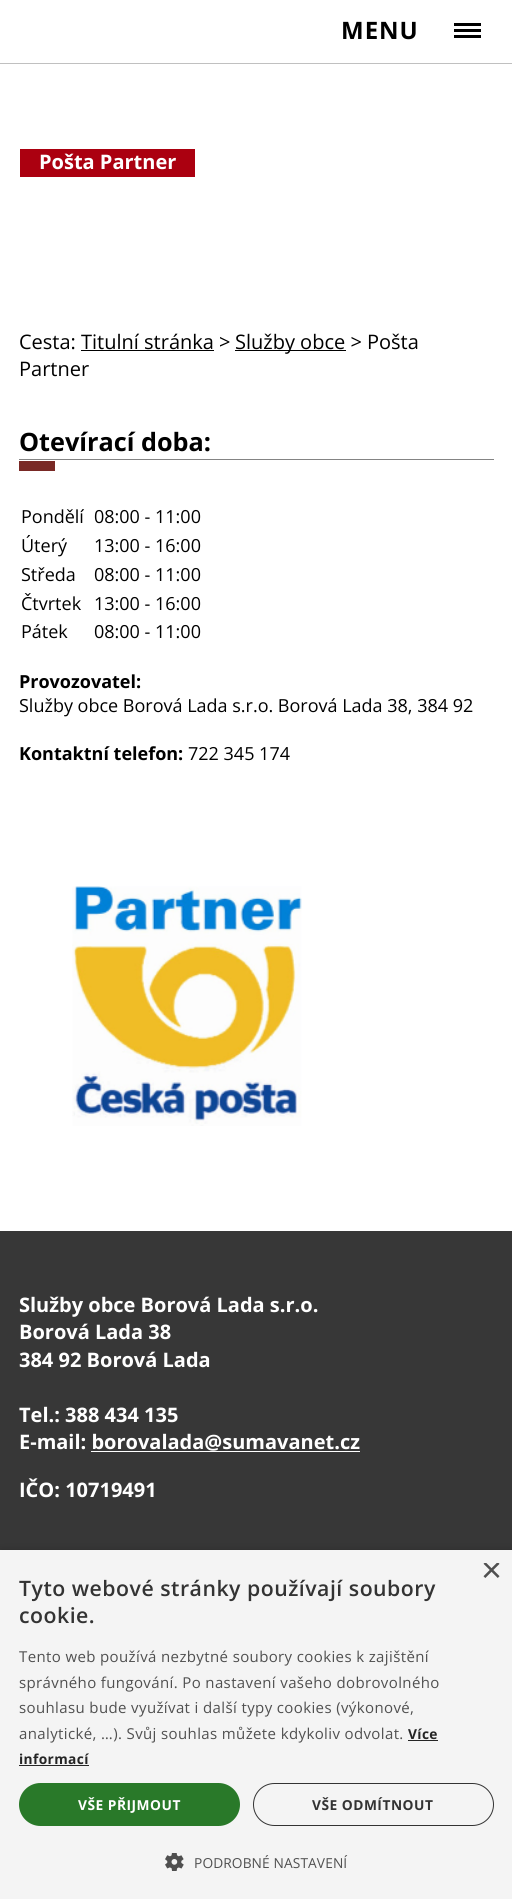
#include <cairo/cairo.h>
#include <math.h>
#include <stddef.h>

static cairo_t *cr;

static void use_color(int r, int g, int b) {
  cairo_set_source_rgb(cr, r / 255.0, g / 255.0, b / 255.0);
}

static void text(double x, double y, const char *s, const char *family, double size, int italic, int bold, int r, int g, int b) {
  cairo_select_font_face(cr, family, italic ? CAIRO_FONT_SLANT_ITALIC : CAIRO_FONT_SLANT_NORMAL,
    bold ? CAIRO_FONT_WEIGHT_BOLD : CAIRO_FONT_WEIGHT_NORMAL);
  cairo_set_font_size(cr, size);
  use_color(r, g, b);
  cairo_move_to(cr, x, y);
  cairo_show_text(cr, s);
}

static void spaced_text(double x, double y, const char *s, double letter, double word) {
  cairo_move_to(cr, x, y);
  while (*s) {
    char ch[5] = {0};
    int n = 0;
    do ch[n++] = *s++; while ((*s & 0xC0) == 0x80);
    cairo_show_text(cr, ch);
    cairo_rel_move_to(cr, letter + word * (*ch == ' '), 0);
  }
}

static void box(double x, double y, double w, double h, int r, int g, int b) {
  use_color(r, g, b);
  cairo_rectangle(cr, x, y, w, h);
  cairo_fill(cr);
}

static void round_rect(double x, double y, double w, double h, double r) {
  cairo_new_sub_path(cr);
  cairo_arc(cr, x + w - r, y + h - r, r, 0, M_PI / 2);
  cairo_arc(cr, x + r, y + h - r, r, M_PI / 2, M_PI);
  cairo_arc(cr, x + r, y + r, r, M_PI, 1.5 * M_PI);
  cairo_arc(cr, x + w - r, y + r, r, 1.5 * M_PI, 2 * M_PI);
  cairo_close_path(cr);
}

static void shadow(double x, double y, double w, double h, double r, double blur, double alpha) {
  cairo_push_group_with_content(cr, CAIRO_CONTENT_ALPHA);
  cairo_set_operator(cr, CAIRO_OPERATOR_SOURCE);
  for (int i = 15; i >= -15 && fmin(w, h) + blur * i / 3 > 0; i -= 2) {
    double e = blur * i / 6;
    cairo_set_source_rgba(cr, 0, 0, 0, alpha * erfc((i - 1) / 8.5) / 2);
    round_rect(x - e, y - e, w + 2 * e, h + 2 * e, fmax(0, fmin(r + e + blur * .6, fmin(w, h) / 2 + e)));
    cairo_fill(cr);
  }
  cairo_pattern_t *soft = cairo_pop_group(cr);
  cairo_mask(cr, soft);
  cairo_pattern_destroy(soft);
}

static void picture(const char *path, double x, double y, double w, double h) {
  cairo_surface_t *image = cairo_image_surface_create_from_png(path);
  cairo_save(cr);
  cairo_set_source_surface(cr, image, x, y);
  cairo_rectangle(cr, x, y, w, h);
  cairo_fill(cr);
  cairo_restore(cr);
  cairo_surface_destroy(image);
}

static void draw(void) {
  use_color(255, 255, 255);
  cairo_paint(cr);
  box(0, 63, 512, 1, 192, 192, 192);
  box(454, 23, 27, 3, 0, 0, 0);
  box(454, 29, 27, 3, 0, 0, 0);
  box(454, 35, 27, 3, 0, 0, 0);
  box(20, 149, 175, 28, 171, 0, 16);
  box(235, 350, 111, 1, 0, 0, 0);
  box(81, 350, 133, 1, 0, 0, 0);
  box(19, 459, 475, 1, 132, 132, 132);
  box(19, 461, 36, 10, 121, 41, 37);
  picture("img_01.png", 72, 886, 230, 240);
  box(0, 1231, 512, 319, 55, 55, 55);
  box(91, 1451, 269, 1, 255, 255, 255);
  use_color(0, 0, 0);
  shadow(1, 1553, 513, 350, 0, 5, 0.35);
  box(0, 1550, 512, 349, 244, 244, 244);
  box(408, 1740, 30, 1, 37, 37, 37);
  box(19, 1765, 70, 1, 37, 37, 37);
  use_color(41, 121, 41);
  round_rect(19, 1783, 221, 43, 21.5);
  cairo_fill(cr);
  round_rect(253.5, 1783.5, 240, 42, 21);
  use_color(51, 51, 51);
  cairo_set_line_width(cr, 1);
  cairo_stroke(cr);
  picture("img_02.png", 165, 1853, 19, 18);
  cairo_select_font_face(cr, "Open Sans", CAIRO_FONT_SLANT_NORMAL, CAIRO_FONT_WEIGHT_BOLD);
  cairo_set_font_size(cr, 24);
  use_color(0, 0, 0);
  spaced_text(341, 39, "MENU", 1, 0);
  text(39, 169, "Pošta Partner", "Open Sans", 20, 0, 1, 255, 255, 255);
  text(19, 349, "Cesta: Titulní stránka >", "Open Sans", 20, 0, 0, 0, 0, 0);
  text(235, 349, "Služby obce > Pošta", "Open Sans", 20, 0, 0, 0, 0, 0);
  text(19, 376, "Partner", "Open Sans", 20, 0, 0, 0, 0, 0);
  text(19, 451, "Otevírací doba:", "Open Sans", 25.25, 0, 1, 0, 0, 0);
  text(21, 523, "Pondělí", "Open Sans", 18, 0, 0, 0, 0, 0);
  text(94, 523, "08:00 - 11:00", "Open Sans", 18, 0, 0, 0, 0, 0);
  text(21, 552, "Úterý", "Open Sans", 18, 0, 0, 0, 0, 0);
  text(94, 552, "13:00 - 16:00", "Open Sans", 18, 0, 0, 0, 0, 0);
  text(21, 581, "Středa", "Open Sans", 18, 0, 0, 0, 0, 0);
  text(94, 581, "08:00 - 11:00", "Open Sans", 18, 0, 0, 0, 0, 0);
  text(21, 610, "Čtvrtek", "Open Sans", 18, 0, 0, 0, 0, 0);
  text(94, 610, "13:00 - 16:00", "Open Sans", 18, 0, 0, 0, 0, 0);
  text(21, 638, "Pátek", "Open Sans", 18, 0, 0, 0, 0, 0);
  text(94, 638, "08:00 - 11:00", "Open Sans", 18, 0, 0, 0, 0, 0);
  text(19, 688, "Provozovatel:", "Open Sans", 18, 0, 1, 0, 0, 0);
  text(19, 712, "Služby obce Borová Lada s.r.o. Borová Lada 38, 384 92", "Open Sans", 18, 0, 0, 0, 0, 0);
  text(19, 760, "Kontaktní telefon:", "Open Sans", 18, 0, 1, 0, 0, 0);
  text(188, 760, "722 345 174", "Open Sans", 18, 0, 0, 0, 0, 0);
  text(19, 1312, "Služby obce Borová Lada s.r.o.", "Open Sans", 20, 0, 1, 255, 255, 255);
  text(19, 1339, "Borová Lada 38", "Open Sans", 20, 0, 1, 255, 255, 255);
  text(19, 1367, "384 92 Borová Lada", "Open Sans", 20, 0, 1, 255, 255, 255);
  text(19, 1422, "Tel.: 388 434 135", "Open Sans", 20, 0, 1, 255, 255, 255);
  text(19, 1449, "E-mail: borovalada@sumavanet.cz", "Open Sans", 20, 0, 1, 255, 255, 255);
  text(19, 1497, "IČO: 10719491", "Open Sans", 20, 0, 1, 255, 255, 255);
  cairo_save(cr);
  cairo_rectangle(cr, 481, 1563, 19, 18);
  cairo_clip(cr);
  text(481, 1582, "×", "Liberation Sans", 36, 0, 0, 80, 80, 80);
  cairo_restore(cr);
  cairo_select_font_face(cr, "Open Sans SemiBold", CAIRO_FONT_SLANT_NORMAL, CAIRO_FONT_WEIGHT_NORMAL);
  cairo_set_font_size(cr, 21.25);
  use_color(51, 51, 51);
  spaced_text(19, 1596, "Tyto webové stránky používají soubory", 0.5, 0);
  spaced_text(19, 1623, "cookie.", 0.5, 0);
  cairo_select_font_face(cr, "Open Sans", CAIRO_FONT_SLANT_NORMAL, CAIRO_FONT_WEIGHT_NORMAL);
  cairo_set_font_size(cr, 15);
  use_color(80, 80, 80);
  spaced_text(19, 1662, "Tento web používá nezbytné soubory cookies k zajištění", 0.38, 0);
  spaced_text(19, 1688, "správného fungování. Po nastavení vašeho dobrovolného", 0.38, 0);
  spaced_text(19, 1713, "souhlasu bude využívat i další typy cookies (výkonové,", 0.38, 0);
  spaced_text(19, 1739, "analytické, …). Svůj souhlas můžete kdykoliv odvolat.", 0.38, 0);
  cairo_select_font_face(cr, "Open Sans", CAIRO_FONT_SLANT_NORMAL, CAIRO_FONT_WEIGHT_BOLD);
  cairo_set_font_size(cr, 13.75);
  use_color(37, 37, 37);
  spaced_text(408, 1739, "Více", 0.38, 0);
  spaced_text(19, 1764, "informací", 0.38, 0);
  use_color(255, 255, 255);
  spaced_text(78, 1810, "VŠE PŘIJMOUT", 0.5, 0);
  use_color(51, 51, 51);
  spaced_text(312, 1810, "VŠE ODMÍTNOUT", 0.5, 0);
  cairo_select_font_face(cr, "Open Sans", CAIRO_FONT_SLANT_NORMAL, CAIRO_FONT_WEIGHT_NORMAL);
  use_color(80, 80, 80);
  spaced_text(194, 1868, "PODROBNÉ NASTAVENÍ", 0.1, 0);
}

int main(void) {
  cairo_surface_t *surface = cairo_image_surface_create(CAIRO_FORMAT_RGB24, 512, 1899);
  cr = cairo_create(surface);
  cairo_font_options_t *options = cairo_font_options_create();
  cairo_font_options_set_hint_metrics(options, CAIRO_HINT_METRICS_OFF);
  cairo_font_options_set_hint_style(options, CAIRO_HINT_STYLE_NONE);
  cairo_set_font_options(cr, options);
  cairo_set_miter_limit(cr, 4);
  draw();
  cairo_surface_write_to_png(surface, "out.png");
  cairo_font_options_destroy(options);
  cairo_destroy(cr);
  cairo_surface_destroy(surface);
  return 0;
}
